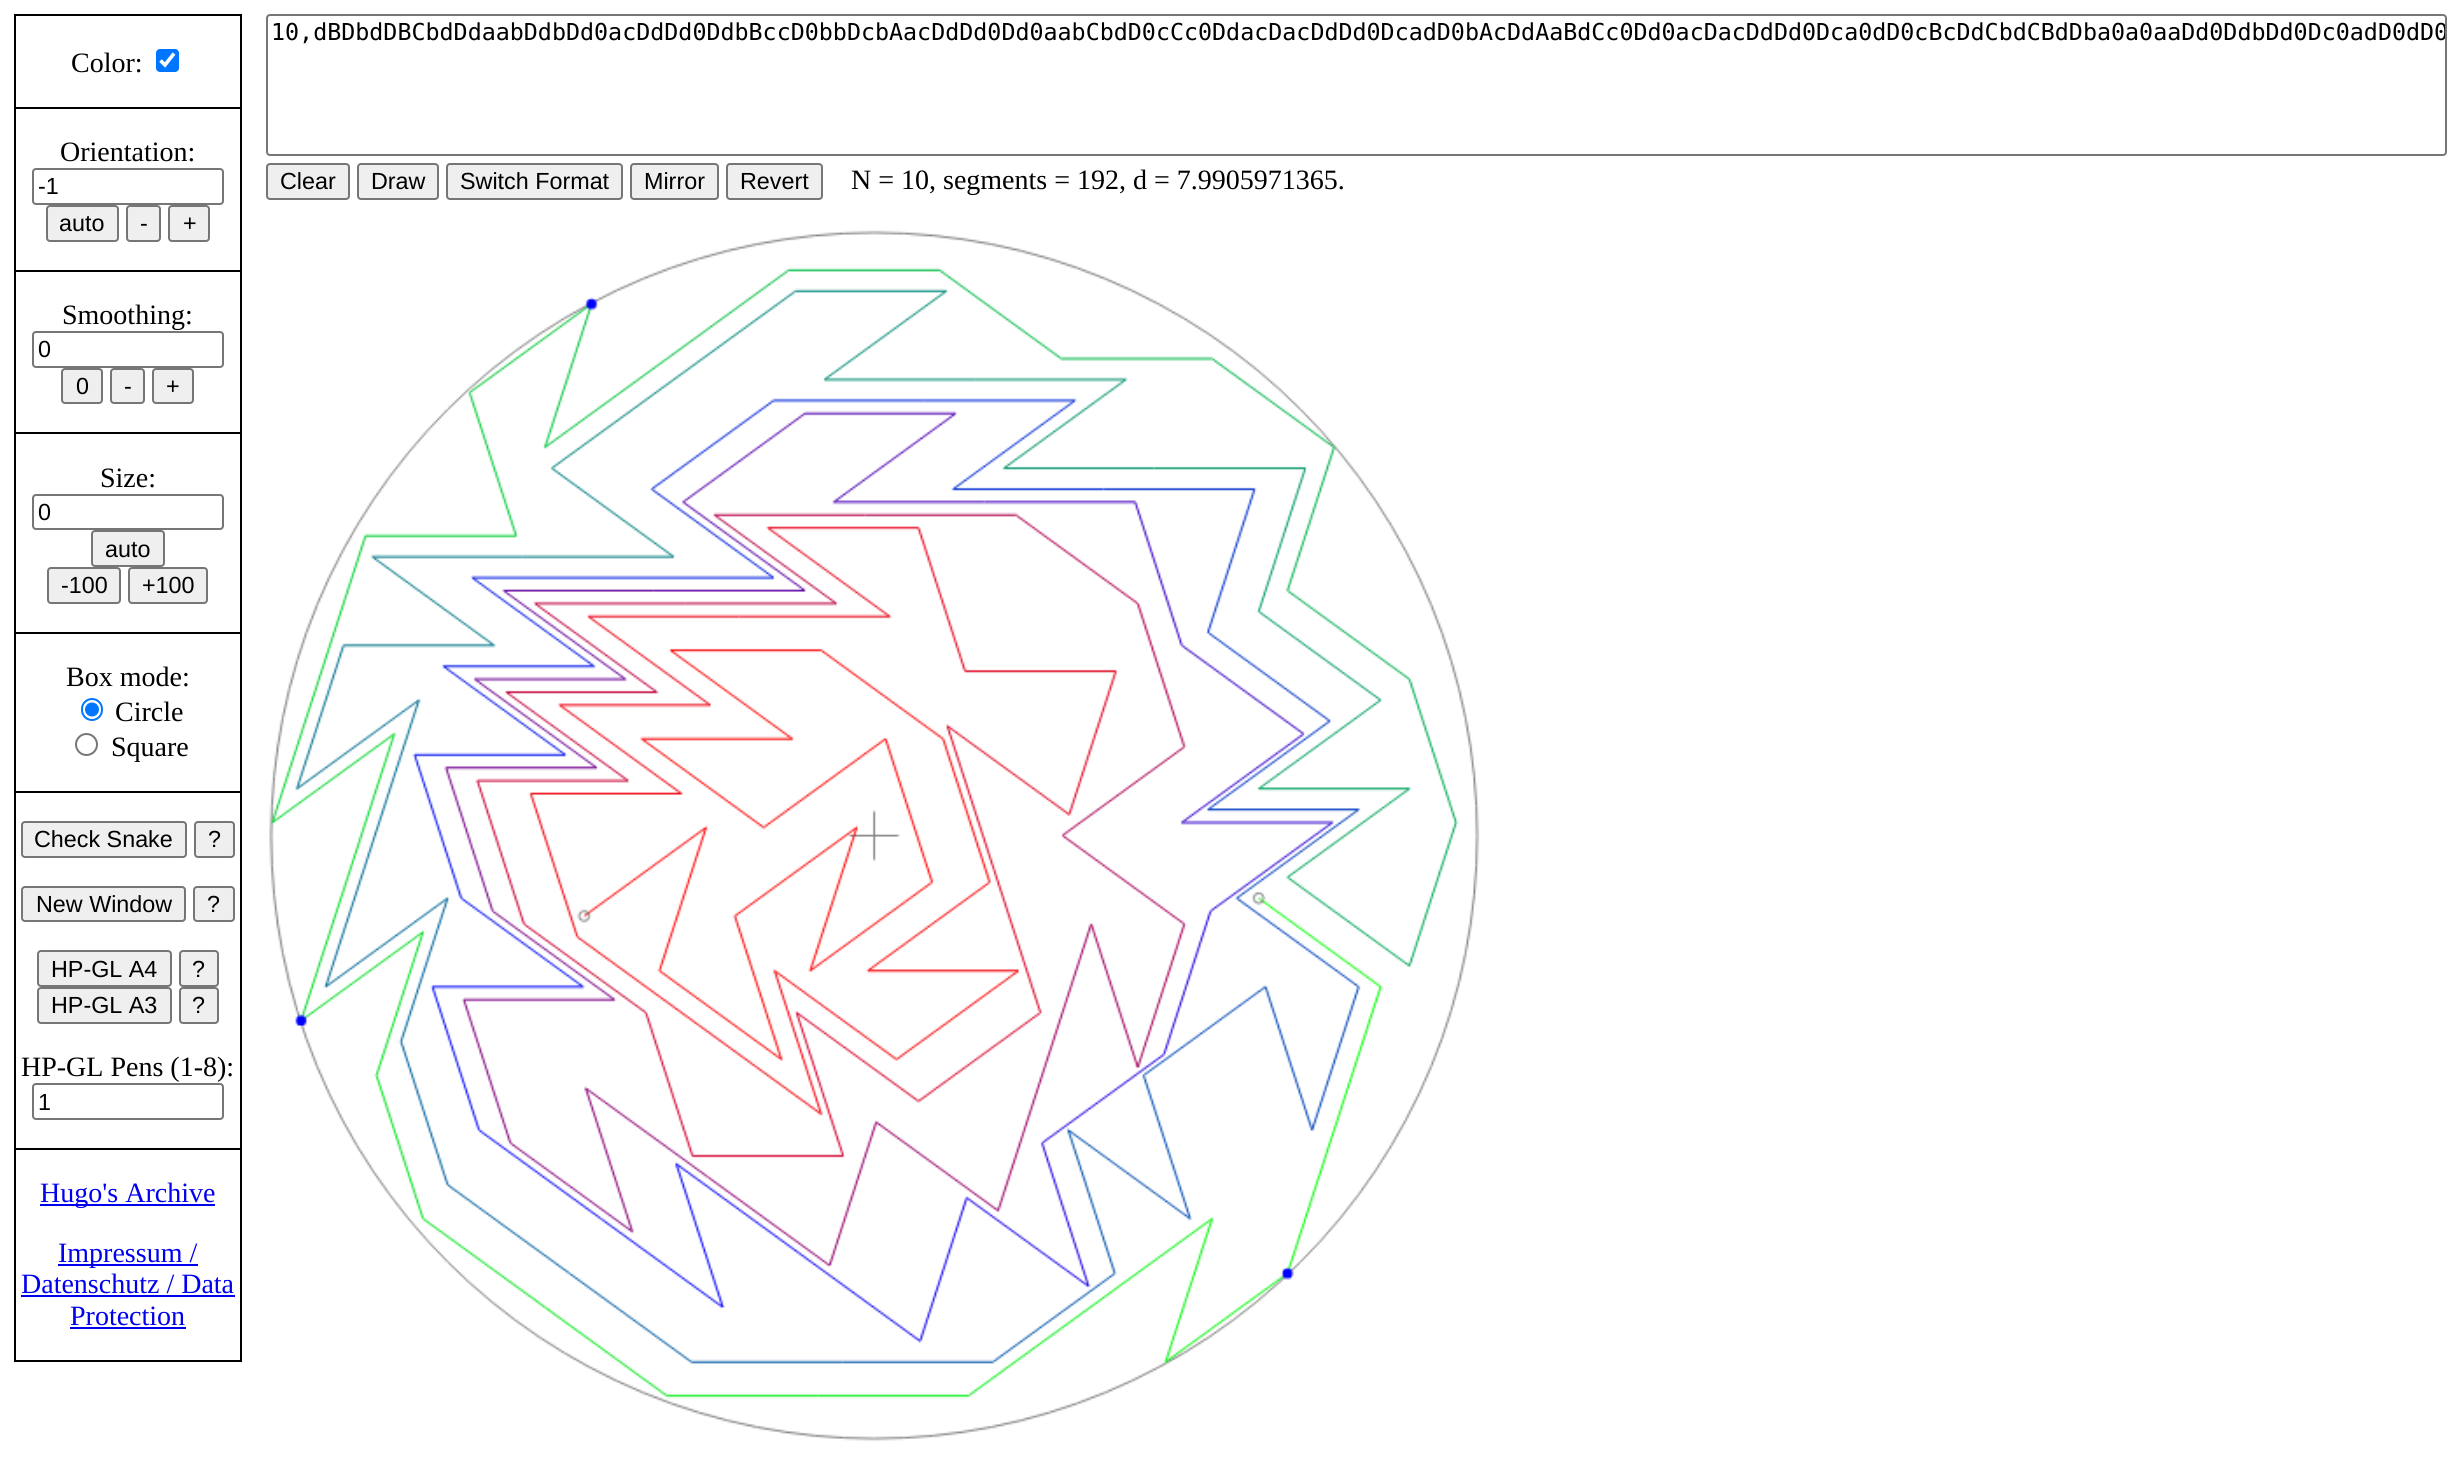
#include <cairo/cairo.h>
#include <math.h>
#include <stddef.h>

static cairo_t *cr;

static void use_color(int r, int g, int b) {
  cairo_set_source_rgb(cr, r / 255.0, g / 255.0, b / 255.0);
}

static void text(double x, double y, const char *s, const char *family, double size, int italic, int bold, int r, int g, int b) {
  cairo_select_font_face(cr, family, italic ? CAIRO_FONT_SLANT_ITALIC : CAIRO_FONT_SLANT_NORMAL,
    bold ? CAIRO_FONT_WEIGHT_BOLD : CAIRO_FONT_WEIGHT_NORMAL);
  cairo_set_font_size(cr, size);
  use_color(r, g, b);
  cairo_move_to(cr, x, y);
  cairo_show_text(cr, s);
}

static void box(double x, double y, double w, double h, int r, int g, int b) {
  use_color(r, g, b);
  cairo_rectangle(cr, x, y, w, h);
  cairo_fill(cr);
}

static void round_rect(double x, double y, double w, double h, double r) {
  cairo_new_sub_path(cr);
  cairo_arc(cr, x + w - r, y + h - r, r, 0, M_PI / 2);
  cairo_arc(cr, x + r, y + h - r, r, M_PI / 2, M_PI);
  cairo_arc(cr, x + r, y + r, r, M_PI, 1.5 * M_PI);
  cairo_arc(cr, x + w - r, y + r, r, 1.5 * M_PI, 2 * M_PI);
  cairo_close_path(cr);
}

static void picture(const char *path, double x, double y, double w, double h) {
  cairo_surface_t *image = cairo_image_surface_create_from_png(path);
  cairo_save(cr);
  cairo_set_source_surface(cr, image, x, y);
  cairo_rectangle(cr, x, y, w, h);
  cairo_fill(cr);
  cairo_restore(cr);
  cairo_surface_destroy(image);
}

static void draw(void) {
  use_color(255, 255, 255);
  cairo_paint(cr);
  cairo_rectangle(cr, 15, 15, 226, 1346);
  use_color(0, 0, 0);
  cairo_stroke(cr);
  use_color(0, 117, 255);
  round_rect(156, 49, 23, 23, 4);
  cairo_fill(cr);
  cairo_new_path(cr);
  cairo_move_to(cr, 160.5, 60.5);
  cairo_line_to(cr, 165, 65);
  cairo_line_to(cr, 174, 53.5);
  use_color(255, 255, 255);
  cairo_set_line_width(cr, 3.6);
  cairo_stroke(cr);
  box(16, 107, 224, 2, 0, 0, 0);
  round_rect(33, 169, 190, 35, 3);
  use_color(118, 118, 118);
  cairo_set_line_width(cr, 2);
  cairo_stroke(cr);
  use_color(239, 239, 239);
  round_rect(47, 206, 71, 35, 3);
  cairo_fill_preserve(cr);
  use_color(118, 118, 118);
  cairo_stroke(cr);
  use_color(239, 239, 239);
  round_rect(127, 206, 33, 35, 3);
  cairo_fill_preserve(cr);
  use_color(118, 118, 118);
  cairo_stroke(cr);
  use_color(239, 239, 239);
  round_rect(169, 206, 40, 35, 3);
  cairo_fill_preserve(cr);
  use_color(118, 118, 118);
  cairo_stroke(cr);
  box(16, 270, 224, 2, 0, 0, 0);
  round_rect(33, 332, 190, 35, 3);
  use_color(118, 118, 118);
  cairo_stroke(cr);
  use_color(239, 239, 239);
  round_rect(62, 369, 40, 34, 3);
  cairo_fill_preserve(cr);
  use_color(118, 118, 118);
  cairo_stroke(cr);
  use_color(239, 239, 239);
  round_rect(111, 369, 33, 34, 3);
  cairo_fill_preserve(cr);
  use_color(118, 118, 118);
  cairo_stroke(cr);
  use_color(239, 239, 239);
  round_rect(153, 369, 40, 34, 3);
  cairo_fill_preserve(cr);
  use_color(118, 118, 118);
  cairo_stroke(cr);
  box(16, 432, 224, 2, 0, 0, 0);
  round_rect(33, 495, 190, 34, 3);
  use_color(118, 118, 118);
  cairo_stroke(cr);
  use_color(239, 239, 239);
  round_rect(92, 531, 72, 35, 3);
  cairo_fill_preserve(cr);
  use_color(118, 118, 118);
  cairo_stroke(cr);
  use_color(239, 239, 239);
  round_rect(48, 568, 72, 35, 3);
  cairo_fill_preserve(cr);
  use_color(118, 118, 118);
  cairo_stroke(cr);
  use_color(239, 239, 239);
  round_rect(129, 568, 78, 35, 3);
  cairo_fill_preserve(cr);
  use_color(118, 118, 118);
  cairo_stroke(cr);
  box(16, 632, 224, 2, 0, 0, 0);
  round_rect(82, 699, 20, 21, 10);
  use_color(0, 117, 255);
  cairo_stroke(cr);
  cairo_arc(cr, 92, 709.5, 7, 0, 2 * M_PI);
  cairo_fill(cr);
  cairo_arc(cr, 86.5, 744.5, 10.5, 0, 2 * M_PI);
  use_color(118, 118, 118);
  cairo_stroke(cr);
  box(16, 791, 224, 2, 0, 0, 0);
  use_color(239, 239, 239);
  round_rect(22, 822, 164, 35, 3);
  cairo_fill_preserve(cr);
  use_color(118, 118, 118);
  cairo_stroke(cr);
  use_color(239, 239, 239);
  round_rect(195, 822, 39, 35, 3);
  cairo_fill_preserve(cr);
  use_color(118, 118, 118);
  cairo_stroke(cr);
  use_color(239, 239, 239);
  round_rect(22, 887, 163, 34, 3);
  cairo_fill_preserve(cr);
  use_color(118, 118, 118);
  cairo_stroke(cr);
  use_color(239, 239, 239);
  round_rect(194, 887, 40, 34, 3);
  cairo_fill_preserve(cr);
  use_color(118, 118, 118);
  cairo_stroke(cr);
  use_color(239, 239, 239);
  round_rect(38, 951, 133, 35, 3);
  cairo_fill_preserve(cr);
  use_color(118, 118, 118);
  cairo_stroke(cr);
  use_color(239, 239, 239);
  round_rect(180, 951, 38, 35, 3);
  cairo_fill_preserve(cr);
  use_color(118, 118, 118);
  cairo_stroke(cr);
  use_color(239, 239, 239);
  round_rect(38, 988, 133, 35, 3);
  cairo_fill_preserve(cr);
  use_color(118, 118, 118);
  cairo_stroke(cr);
  use_color(239, 239, 239);
  round_rect(180, 988, 38, 35, 3);
  cairo_fill_preserve(cr);
  use_color(118, 118, 118);
  cairo_stroke(cr);
  round_rect(33, 1084, 190, 35, 3);
  cairo_stroke(cr);
  box(16, 1148, 224, 2, 0, 0, 0);
  box(40, 1204, 175, 2, 0, 0, 238);
  box(58, 1264, 140, 2, 0, 0, 238);
  box(21, 1295, 214, 2, 0, 0, 238);
  box(70, 1327, 116, 2, 0, 0, 238);
  round_rect(267, 15, 2179, 140, 3);
  use_color(118, 118, 118);
  cairo_stroke(cr);
  use_color(239, 239, 239);
  round_rect(267, 164, 82, 35, 3);
  cairo_fill_preserve(cr);
  use_color(118, 118, 118);
  cairo_stroke(cr);
  use_color(239, 239, 239);
  round_rect(358, 164, 80, 35, 3);
  cairo_fill_preserve(cr);
  use_color(118, 118, 118);
  cairo_stroke(cr);
  use_color(239, 239, 239);
  round_rect(447, 164, 175, 35, 3);
  cairo_fill_preserve(cr);
  use_color(118, 118, 118);
  cairo_stroke(cr);
  use_color(239, 239, 239);
  round_rect(631, 164, 87, 35, 3);
  cairo_fill_preserve(cr);
  use_color(118, 118, 118);
  cairo_stroke(cr);
  use_color(239, 239, 239);
  round_rect(727, 164, 95, 35, 3);
  cairo_fill_preserve(cr);
  use_color(118, 118, 118);
  cairo_stroke(cr);
  picture("img_01.png", 269, 230, 1211, 1211);
  text(71, 72, "Color:", "Liberation Serif", 28, 0, 0, 0, 0, 0);
  text(60, 161, "Orientation:", "Liberation Serif", 28, 0, 0, 0, 0, 0);
  text(38, 194, "-1", "Liberation Sans", 23.33, 0, 0, 0, 0, 0);
  text(59, 231, "auto", "Liberation Sans", 23.33, 0, 0, 0, 0, 0);
  text(140, 231, "-", "Liberation Sans", 23.33, 0, 0, 0, 0, 0);
  text(183, 231, "+", "Liberation Sans", 23.33, 0, 0, 0, 0, 0);
  text(62, 324, "Smoothing:", "Liberation Serif", 28, 0, 0, 0, 0, 0);
  text(38, 357, "0", "Liberation Sans", 23.33, 0, 0, 0, 0, 0);
  text(76, 394, "0", "Liberation Sans", 23.33, 0, 0, 0, 0, 0);
  text(124, 394, "-", "Liberation Sans", 23.33, 0, 0, 0, 0, 0);
  text(166, 394, "+", "Liberation Sans", 23.33, 0, 0, 0, 0, 0);
  text(100, 487, "Size:", "Liberation Serif", 28, 0, 0, 0, 0, 0);
  text(38, 520, "0", "Liberation Sans", 23.33, 0, 0, 0, 0, 0);
  text(105, 557, "auto", "Liberation Sans", 23.33, 0, 0, 0, 0, 0);
  text(61, 593, "-100", "Liberation Sans", 23.33, 0, 0, 0, 0, 0);
  text(142, 593, "+100", "Liberation Sans", 23.33, 0, 0, 0, 0, 0);
  text(66, 686, "Box mode:", "Liberation Serif", 28, 0, 0, 0, 0, 0);
  text(115, 721, "Circle", "Liberation Serif", 28, 0, 0, 0, 0, 0);
  text(111, 756, "Square", "Liberation Serif", 28, 0, 0, 0, 0, 0);
  text(34, 847, "Check Snake", "Liberation Sans", 23.33, 0, 0, 0, 0, 0);
  text(208, 847, "?", "Liberation Sans", 23.33, 0, 0, 0, 0, 0);
  text(36, 912, "New Window", "Liberation Sans", 23.33, 0, 0, 0, 0, 0);
  text(207, 912, "?", "Liberation Sans", 23.33, 0, 0, 0, 0, 0);
  text(51, 977, "HP-GL A4", "Liberation Sans", 23.33, 0, 0, 0, 0, 0);
  text(192, 977, "?", "Liberation Sans", 23.33, 0, 0, 0, 0, 0);
  text(51, 1013, "HP-GL A3", "Liberation Sans", 23.33, 0, 0, 0, 0, 0);
  text(192, 1013, "?", "Liberation Sans", 23.33, 0, 0, 0, 0, 0);
  text(21, 1076, "HP-GL Pens (1-8):", "Liberation Serif", 28, 0, 0, 0, 0, 0);
  text(38, 1110, "1", "Liberation Sans", 23.33, 0, 0, 0, 0, 0);
  text(40, 1202, "Hugo's Archive", "Liberation Serif", 28, 0, 0, 0, 0, 238);
  text(58, 1262, "Impressum /", "Liberation Serif", 28, 0, 0, 0, 0, 238);
  text(21, 1293, "Datenschutz / Data", "Liberation Serif", 28, 0, 0, 0, 0, 238);
  text(70, 1325, "Protection", "Liberation Serif", 28, 0, 0, 0, 0, 238);
  cairo_save(cr);
  cairo_rectangle(cr, 268, 16, 2177, 138);
  cairo_clip(cr);
  text(271, 40, "10,dBDbdDBCbdDdaabDdbDd0acDdDd0DdbBccD0bbDcbAacDdDd0Dd0aabCbdD0cCc0DdacDacDdDd0DcadD0bAcDdAaBdCc0Dd0acDacDdDd0Dca0dD0cBcDdCbdCBdDba0a0aaDd0DdbDd0Dc0adD0dD0", "DejaVu Sans Mono", 23.33, 0, 0, 0, 0, 0);
  cairo_restore(cr);
  text(280, 189, "Clear", "Liberation Sans", 23.33, 0, 0, 0, 0, 0);
  text(371, 189, "Draw", "Liberation Sans", 23.33, 0, 0, 0, 0, 0);
  text(460, 189, "Switch Format", "Liberation Sans", 23.33, 0, 0, 0, 0, 0);
  text(644, 189, "Mirror", "Liberation Sans", 23.33, 0, 0, 0, 0, 0);
  text(740, 189, "Revert", "Liberation Sans", 23.33, 0, 0, 0, 0, 0);
  text(851, 189, "N = 10, segments = 192, d = 7.9905971365.", "Liberation Serif", 28, 0, 0, 0, 0, 0);
}

int main(void) {
  cairo_surface_t *surface = cairo_image_surface_create(CAIRO_FORMAT_RGB24, 2449, 1479);
  cr = cairo_create(surface);
  cairo_font_options_t *options = cairo_font_options_create();
  cairo_font_options_set_hint_metrics(options, CAIRO_HINT_METRICS_OFF);
  cairo_font_options_set_hint_style(options, CAIRO_HINT_STYLE_NONE);
  cairo_set_font_options(cr, options);
  cairo_set_miter_limit(cr, 4);
  draw();
  cairo_surface_write_to_png(surface, "out.png");
  cairo_font_options_destroy(options);
  cairo_destroy(cr);
  cairo_surface_destroy(surface);
  return 0;
}
